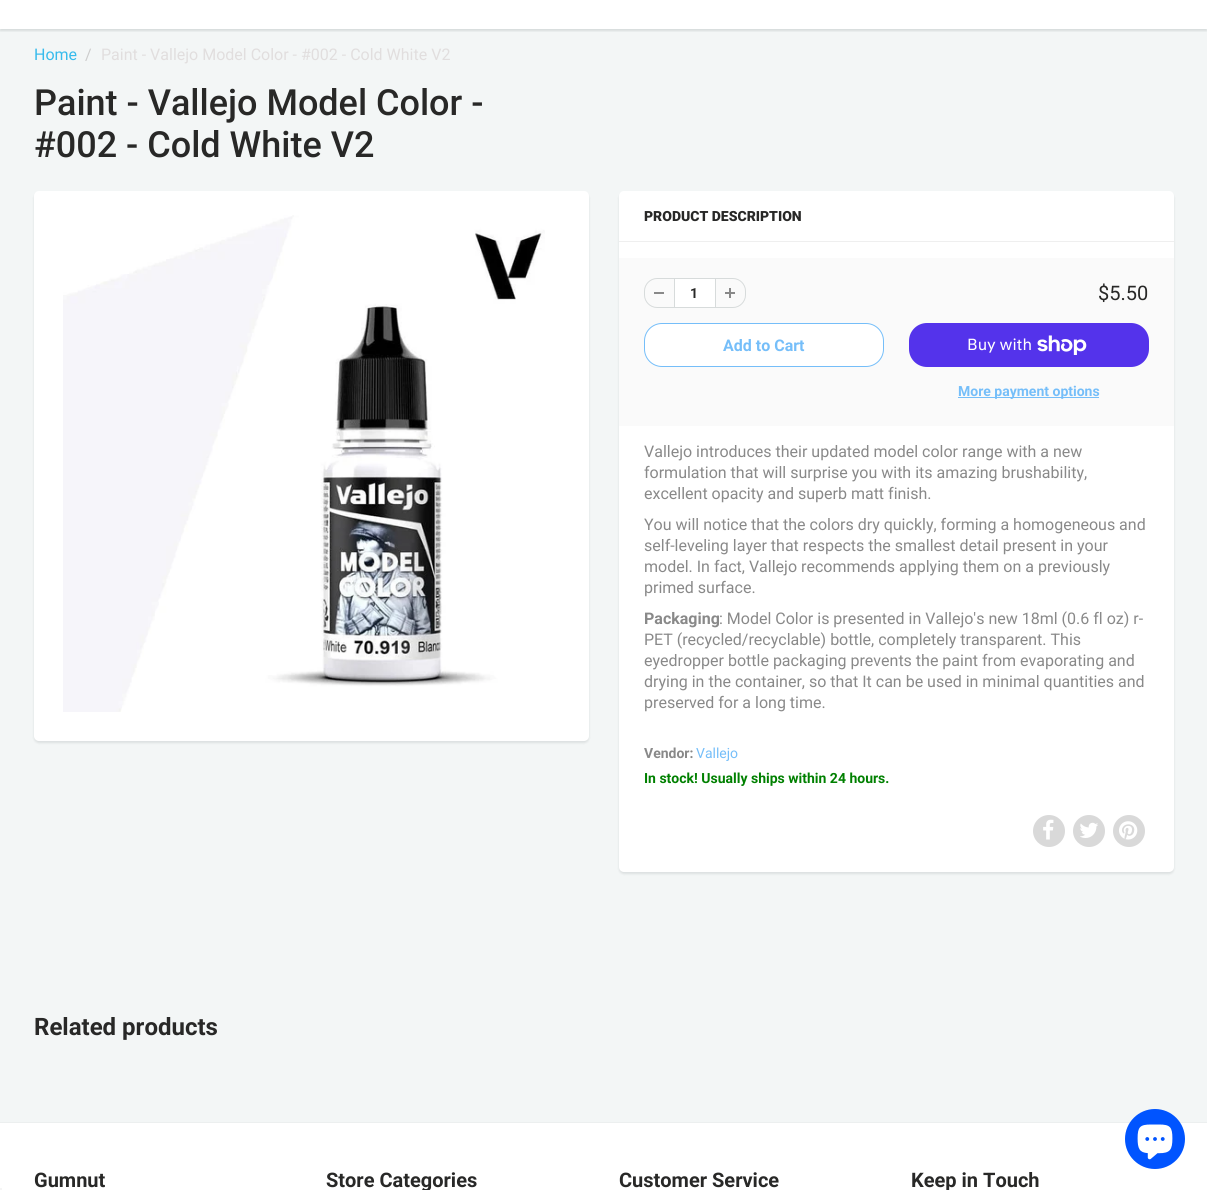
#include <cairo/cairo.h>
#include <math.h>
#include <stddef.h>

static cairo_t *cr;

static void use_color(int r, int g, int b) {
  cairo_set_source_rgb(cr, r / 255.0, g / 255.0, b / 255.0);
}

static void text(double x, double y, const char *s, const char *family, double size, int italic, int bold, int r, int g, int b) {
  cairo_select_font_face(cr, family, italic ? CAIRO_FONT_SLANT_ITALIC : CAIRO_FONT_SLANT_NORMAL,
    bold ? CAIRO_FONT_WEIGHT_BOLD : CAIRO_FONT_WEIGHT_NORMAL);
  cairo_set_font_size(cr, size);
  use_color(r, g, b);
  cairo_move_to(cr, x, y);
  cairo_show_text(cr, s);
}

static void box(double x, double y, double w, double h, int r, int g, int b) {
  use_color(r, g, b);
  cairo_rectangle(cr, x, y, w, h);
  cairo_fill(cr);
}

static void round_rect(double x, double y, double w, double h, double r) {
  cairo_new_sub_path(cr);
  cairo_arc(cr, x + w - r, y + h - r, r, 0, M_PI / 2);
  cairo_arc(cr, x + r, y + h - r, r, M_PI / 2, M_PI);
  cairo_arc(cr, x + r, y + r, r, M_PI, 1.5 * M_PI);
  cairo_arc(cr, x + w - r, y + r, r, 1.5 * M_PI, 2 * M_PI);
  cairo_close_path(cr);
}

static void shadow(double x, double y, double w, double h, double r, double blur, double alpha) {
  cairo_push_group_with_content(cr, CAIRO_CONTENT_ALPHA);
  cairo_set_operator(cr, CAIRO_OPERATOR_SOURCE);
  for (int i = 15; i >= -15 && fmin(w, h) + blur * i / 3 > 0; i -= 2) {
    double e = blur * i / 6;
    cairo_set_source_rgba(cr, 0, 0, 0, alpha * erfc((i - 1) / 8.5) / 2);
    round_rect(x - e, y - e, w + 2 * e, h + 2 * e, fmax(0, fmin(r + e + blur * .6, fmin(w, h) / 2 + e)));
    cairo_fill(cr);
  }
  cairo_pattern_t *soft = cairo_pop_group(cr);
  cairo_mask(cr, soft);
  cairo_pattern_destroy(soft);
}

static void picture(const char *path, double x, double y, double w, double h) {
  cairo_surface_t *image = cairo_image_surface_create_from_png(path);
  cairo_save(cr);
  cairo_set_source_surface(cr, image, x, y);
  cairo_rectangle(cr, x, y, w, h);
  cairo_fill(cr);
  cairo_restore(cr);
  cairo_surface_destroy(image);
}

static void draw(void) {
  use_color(255, 255, 255);
  cairo_paint(cr);
  box(0, 29, 1207, 1093, 243, 246, 246);
  cairo_save(cr);
  cairo_rectangle(cr, 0, 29, 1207, 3);
  cairo_clip(cr);
  use_color(11, 25, 28);
  shadow(0, -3, 1207, 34, 0, 1, 0.12);
  cairo_restore(cr);
  use_color(11, 25, 28);
  shadow(34, 193, 555, 550, 5, 1, 0.1);
  use_color(255, 255, 255);
  round_rect(34, 191, 555, 550, 5);
  cairo_fill(cr);
  picture("img_01.png", 63, 215, 482, 497);
  use_color(11, 25, 28);
  shadow(619, 193, 555, 681, 5, 1, 0.1);
  use_color(255, 255, 255);
  round_rect(619, 191, 555, 681, 5);
  cairo_fill(cr);
  box(619, 241, 555, 1, 239, 239, 239);
  box(619, 258, 555, 168, 250, 250, 250);
  box(654, 292, 10, 2, 137, 137, 137);
  use_color(215, 219, 219);
  cairo_set_fill_rule(cr, CAIRO_FILL_RULE_EVEN_ODD);
  cairo_new_path(cr);
  cairo_move_to(cr, 657, 278);
  cairo_line_to(cr, 674, 278);
  cairo_line_to(cr, 674, 308);
  cairo_line_to(cr, 657, 308);
  cairo_curve_to(cr, 650, 308, 644, 302, 644, 295);
  cairo_line_to(cr, 644, 291);
  cairo_curve_to(cr, 644, 284, 650, 278, 657, 278);
  cairo_close_path(cr);
  cairo_move_to(cr, 657, 279);
  cairo_line_to(cr, 674, 279);
  cairo_line_to(cr, 674, 307);
  cairo_line_to(cr, 657, 307);
  cairo_curve_to(cr, 650.5, 307, 645, 301.5, 645, 295);
  cairo_line_to(cr, 645, 291);
  cairo_curve_to(cr, 645, 284.5, 650.5, 279, 657, 279);
  cairo_close_path(cr);
  cairo_fill(cr);
  use_color(255, 255, 255);
  cairo_rectangle(cr, 674.5, 278.5, 41, 29);
  cairo_fill_preserve(cr);
  use_color(215, 219, 219);
  cairo_set_line_width(cr, 1);
  cairo_stroke(cr);
  picture("img_02.png", 725, 288, 10, 10);
  cairo_new_path(cr);
  cairo_move_to(cr, 716, 278);
  cairo_line_to(cr, 733, 278);
  cairo_curve_to(cr, 740, 278, 746, 284, 746, 291);
  cairo_line_to(cr, 746, 295);
  cairo_curve_to(cr, 746, 302, 740, 308, 733, 308);
  cairo_line_to(cr, 716, 308);
  cairo_close_path(cr);
  cairo_move_to(cr, 716, 279);
  cairo_line_to(cr, 733, 279);
  cairo_curve_to(cr, 739.5, 279, 745, 284.5, 745, 291);
  cairo_line_to(cr, 745, 295);
  cairo_curve_to(cr, 745, 301.5, 739.5, 307, 733, 307);
  cairo_line_to(cr, 716, 307);
  cairo_close_path(cr);
  cairo_fill(cr);
  use_color(255, 255, 255);
  round_rect(644.5, 323.5, 239, 43, 17.5);
  cairo_fill_preserve(cr);
  use_color(117, 190, 249);
  cairo_stroke(cr);
  use_color(84, 51, 235);
  round_rect(909, 323, 240, 44, 18);
  cairo_fill(cr);
  picture("img_03.png", 1037, 335, 50, 20);
  box(958, 397, 141, 1, 117, 190, 249);
  use_color(217, 217, 217);
  cairo_arc(cr, 1049, 831, 16, 0, 2 * M_PI);
  cairo_fill(cr);
  picture("img_04.png", 1043, 819, 11, 21);
  cairo_arc(cr, 1089, 831, 16, 0, 2 * M_PI);
  cairo_fill(cr);
  picture("img_05.png", 1080, 822, 18, 16);
  cairo_arc(cr, 1129, 831, 16, 0, 2 * M_PI);
  cairo_fill(cr);
  picture("img_06.png", 1119, 821, 19, 19);
  box(0, 1122, 1207, 1, 236, 239, 239);
  use_color(0, 84, 255);
  cairo_arc(cr, 1155, 1139, 30, 0, 2 * M_PI);
  cairo_fill(cr);
  picture("img_07.png", 1137, 1124, 36, 36);
  box(0, 1188, 2, 2, 245, 245, 245);
  text(34, 60, "Home", "Roboto", 16, 0, 0, 55, 187, 236);
  text(85, 60, "/", "Roboto", 16, 0, 0, 204, 204, 204);
  text(101, 60, "Paint - Vallejo Model Color - #002 - Cold White V2", "Roboto", 16, 0, 0, 225, 222, 222);
  text(34, 115, "Paint - Vallejo Model Color -", "Roboto Medium", 36, 0, 0, 40, 40, 39);
  text(34, 157, "#002 - Cold White V2", "Roboto Medium", 36, 0, 0, 40, 40, 39);
  text(644, 221, "PRODUCT DESCRIPTION", "Roboto Black", 14, 0, 0, 40, 40, 39);
  text(690, 298, "1", "Roboto", 14, 0, 1, 40, 40, 39);
  text(1098, 300, "$5.50", "Roboto", 20, 0, 0, 40, 40, 39);
  text(723, 351, "Add to Cart", "Roboto", 16, 0, 1, 117, 190, 249);
  text(967, 350, "Buy with", "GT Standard", 16, 0, 0, 255, 255, 255);
  text(958, 396, "More payment options", "Roboto", 14, 0, 1, 117, 190, 249);
  text(644, 457, "Vallejo introduces their updated model color range with a new", "Roboto", 16, 0, 0, 137, 137, 137);
  text(644, 478, "formulation that will surprise you with its amazing brushability,", "Roboto", 16, 0, 0, 137, 137, 137);
  text(644, 499, "excellent opacity and superb matt finish.", "Roboto", 16, 0, 0, 137, 137, 137);
  text(644, 530, "You will notice that the colors dry quickly, forming a homogeneous and", "Roboto", 16, 0, 0, 137, 137, 137);
  text(644, 551, "self-leveling layer that respects the smallest detail present in your", "Roboto", 16, 0, 0, 137, 137, 137);
  text(644, 572, "model. In fact, Vallejo recommends applying them on a previously", "Roboto", 16, 0, 0, 137, 137, 137);
  text(644, 593, "primed surface.", "Roboto", 16, 0, 0, 137, 137, 137);
  text(644, 624, "Packaging", "Roboto", 16, 0, 1, 137, 137, 137);
  text(719, 624, ": Model Color is presented in Vallejo's new 18ml (0.6 fl oz) r-", "Roboto", 16, 0, 0, 137, 137, 137);
  text(644, 645, "PET (recycled/recyclable) bottle, completely transparent. This", "Roboto", 16, 0, 0, 137, 137, 137);
  text(644, 666, "eyedropper bottle packaging prevents the paint from evaporating and", "Roboto", 16, 0, 0, 137, 137, 137);
  text(644, 687, "drying in the container, so that It can be used in minimal quantities and", "Roboto", 16, 0, 0, 137, 137, 137);
  text(644, 708, "preserved for a long time.", "Roboto", 16, 0, 0, 137, 137, 137);
  text(644, 758, "Vendor:", "Roboto", 14, 0, 1, 137, 137, 137);
  text(696, 758, "Vallejo", "Roboto", 14, 0, 0, 117, 190, 249);
  text(644, 783, "In stock! Usually ships within 24 hours.", "Roboto", 14, 0, 1, 0, 128, 0);
  text(34, 1035, "Related products", "Roboto", 24, 0, 1, 40, 40, 39);
  text(34, 1187, "Gumnut", "Roboto", 20, 0, 1, 40, 40, 39);
  text(326, 1187, "Store Categories", "Roboto", 20, 0, 1, 40, 40, 39);
  text(619, 1187, "Customer Service", "Roboto", 20, 0, 1, 40, 40, 39);
  text(911, 1187, "Keep in Touch", "Roboto", 20, 0, 1, 40, 40, 39);
}

int main(void) {
  cairo_surface_t *surface = cairo_image_surface_create(CAIRO_FORMAT_RGB24, 1207, 1190);
  cr = cairo_create(surface);
  cairo_font_options_t *options = cairo_font_options_create();
  cairo_font_options_set_hint_metrics(options, CAIRO_HINT_METRICS_OFF);
  cairo_font_options_set_hint_style(options, CAIRO_HINT_STYLE_NONE);
  cairo_set_font_options(cr, options);
  cairo_set_miter_limit(cr, 4);
  draw();
  cairo_surface_write_to_png(surface, "out.png");
  cairo_font_options_destroy(options);
  cairo_destroy(cr);
  cairo_surface_destroy(surface);
  return 0;
}
